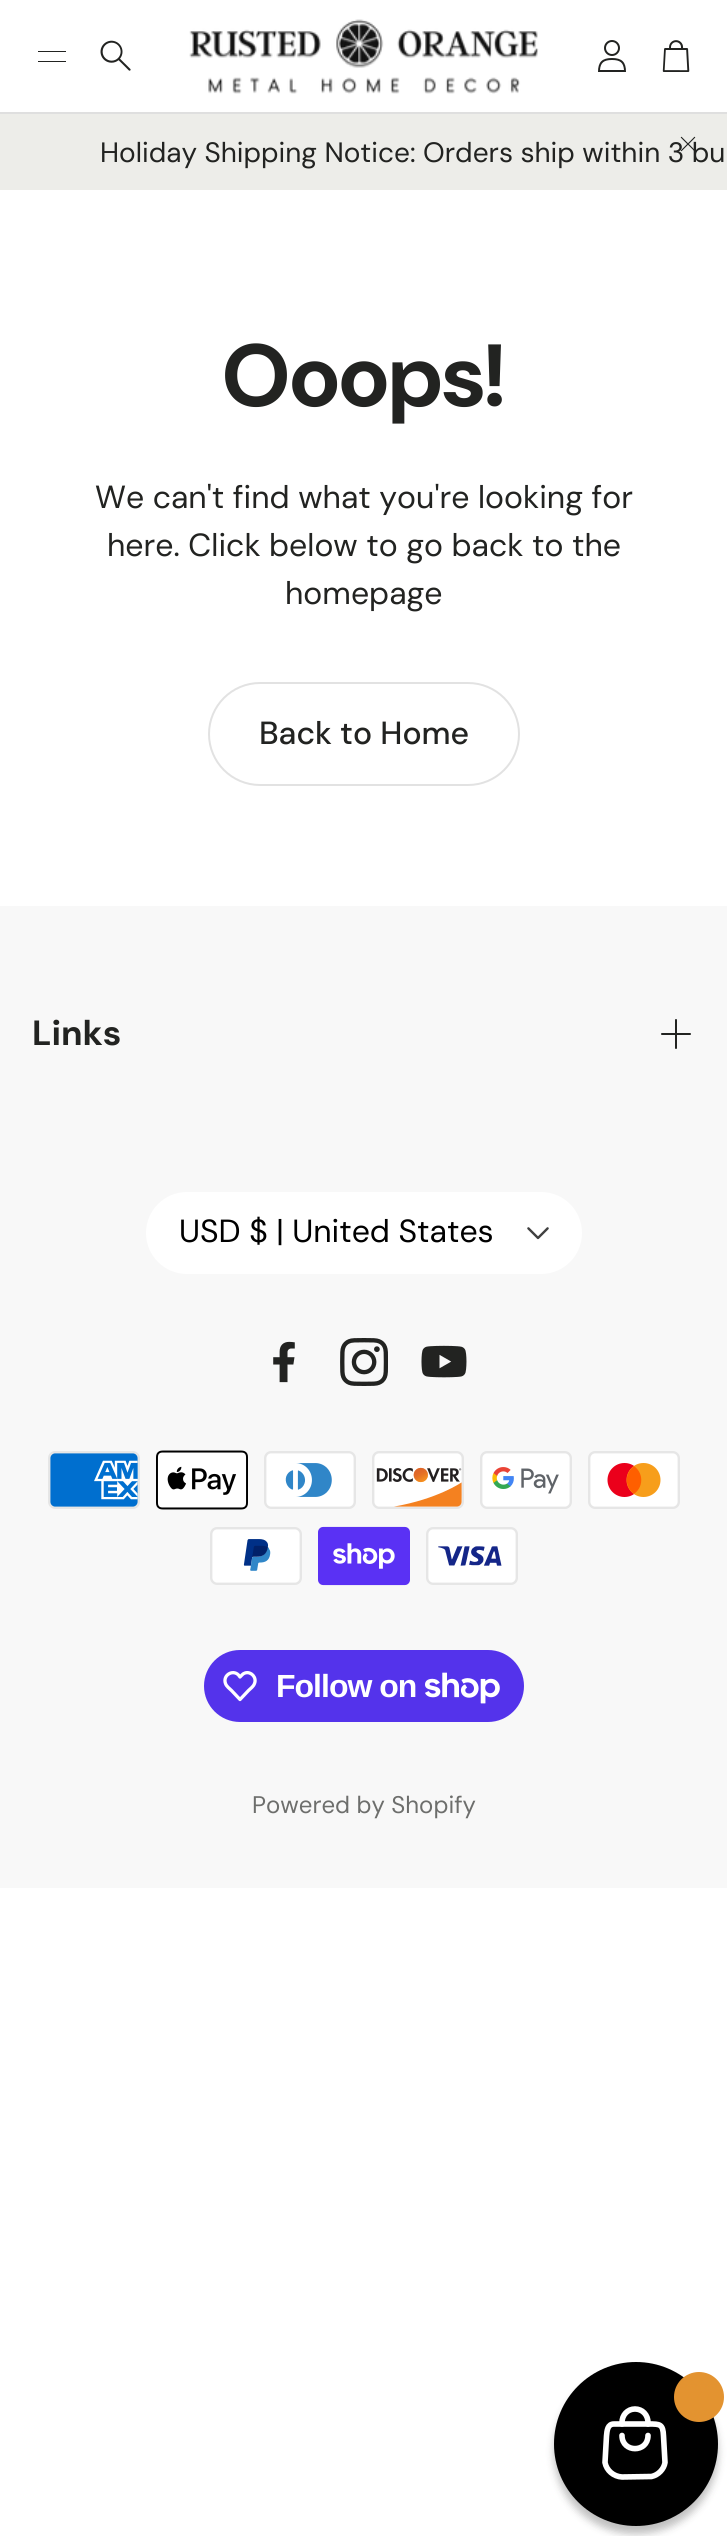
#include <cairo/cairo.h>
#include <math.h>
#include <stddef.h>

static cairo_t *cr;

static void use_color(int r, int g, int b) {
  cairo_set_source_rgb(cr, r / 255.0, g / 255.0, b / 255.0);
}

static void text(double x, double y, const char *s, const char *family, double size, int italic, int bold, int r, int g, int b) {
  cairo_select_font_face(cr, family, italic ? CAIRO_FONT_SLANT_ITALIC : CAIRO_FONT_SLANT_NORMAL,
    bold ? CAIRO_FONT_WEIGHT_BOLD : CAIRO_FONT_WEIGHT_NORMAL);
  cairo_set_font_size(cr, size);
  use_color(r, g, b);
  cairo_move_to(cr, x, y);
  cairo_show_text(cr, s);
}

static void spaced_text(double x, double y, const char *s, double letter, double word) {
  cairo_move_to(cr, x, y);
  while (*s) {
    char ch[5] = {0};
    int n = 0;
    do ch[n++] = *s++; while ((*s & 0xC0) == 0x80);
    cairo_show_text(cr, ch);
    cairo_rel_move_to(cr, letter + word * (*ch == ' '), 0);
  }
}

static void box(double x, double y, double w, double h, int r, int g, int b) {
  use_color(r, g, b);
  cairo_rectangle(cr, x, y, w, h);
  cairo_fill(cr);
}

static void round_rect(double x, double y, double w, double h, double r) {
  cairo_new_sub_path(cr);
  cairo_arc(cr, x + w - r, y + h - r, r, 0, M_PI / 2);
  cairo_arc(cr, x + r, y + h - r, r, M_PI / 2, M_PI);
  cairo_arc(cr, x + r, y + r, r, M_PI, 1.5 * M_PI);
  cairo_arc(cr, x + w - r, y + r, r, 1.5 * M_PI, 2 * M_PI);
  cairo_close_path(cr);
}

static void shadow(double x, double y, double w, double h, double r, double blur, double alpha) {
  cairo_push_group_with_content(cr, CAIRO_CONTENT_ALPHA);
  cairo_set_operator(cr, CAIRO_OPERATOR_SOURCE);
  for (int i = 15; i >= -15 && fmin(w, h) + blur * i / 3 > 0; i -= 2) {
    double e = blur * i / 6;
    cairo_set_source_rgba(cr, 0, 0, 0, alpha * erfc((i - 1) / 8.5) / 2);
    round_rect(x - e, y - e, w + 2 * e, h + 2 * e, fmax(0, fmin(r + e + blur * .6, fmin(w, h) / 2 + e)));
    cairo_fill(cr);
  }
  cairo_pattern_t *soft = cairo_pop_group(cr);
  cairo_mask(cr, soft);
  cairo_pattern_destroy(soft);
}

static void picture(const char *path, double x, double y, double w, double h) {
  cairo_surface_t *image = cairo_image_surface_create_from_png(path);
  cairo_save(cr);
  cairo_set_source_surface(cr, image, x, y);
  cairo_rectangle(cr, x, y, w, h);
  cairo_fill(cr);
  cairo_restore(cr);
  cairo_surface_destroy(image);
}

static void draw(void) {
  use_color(255, 255, 255);
  cairo_paint(cr);
  box(0, 112, 727, 2, 223, 223, 223);
  box(38, 51, 28, 1, 34, 35, 33);
  box(38, 61, 28, 1, 34, 35, 33);
  picture("img_01.png", 100, 40, 31, 31);
  picture("img_02.png", 189, 19, 350, 75);
  picture("img_03.png", 598, 40, 28, 32);
  picture("img_04.png", 662, 40, 28, 32);
  box(0, 114, 727, 76, 237, 237, 233);
  round_rect(209, 683, 310, 102, 51);
  use_color(226, 226, 226);
  cairo_stroke(cr);
  box(0, 906, 727, 982, 248, 248, 248);
  use_color(34, 35, 33);
  round_rect(661, 1033, 30, 2, 1);
  cairo_fill(cr);
  round_rect(675, 1019, 2, 30, 1);
  cairo_fill(cr);
  use_color(255, 255, 255);
  round_rect(146, 1192, 436, 82, 41);
  cairo_fill(cr);
  picture("img_06.png", 527, 1227, 22, 13);
  picture("img_07.png", 273, 1341, 22, 42);
  picture("img_08.png", 340, 1338, 48, 48);
  picture("img_09.png", 421, 1345, 46, 33);
  picture("img_10.png", 48, 1451, 92, 58);
  picture("img_11.png", 156, 1450, 92, 60);
  picture("img_12.png", 264, 1451, 92, 58);
  picture("img_13.png", 372, 1451, 92, 58);
  picture("img_14.png", 480, 1451, 92, 58);
  picture("img_15.png", 588, 1451, 92, 58);
  picture("img_16.png", 210, 1527, 92, 58);
  picture("img_17.png", 318, 1526, 92, 60);
  picture("img_18.png", 426, 1527, 92, 58);
  use_color(84, 51, 235);
  round_rect(204, 1650, 320, 72, 36);
  cairo_fill(cr);
  cairo_new_path(cr);
  cairo_move_to(cr, 238.5, 1675);
  cairo_line_to(cr, 240, 1677);
  cairo_curve_to(cr, 241.5, 1675.5, 243, 1673.5, 245, 1673);
  cairo_curve_to(cr, 251, 1671, 257, 1677.5, 254.5, 1683.5);
  cairo_curve_to(cr, 253.5, 1686.5, 250.5, 1688.5, 248.5, 1690.5);
  cairo_line_to(cr, 240, 1699.5);
  cairo_line_to(cr, 231.5, 1690.5);
  cairo_curve_to(cr, 229.5, 1688.5, 226.5, 1686.5, 225.5, 1683.5);
  cairo_curve_to(cr, 222.5, 1675.5, 232.5, 1669, 238.5, 1675);
  cairo_close_path(cr);
  use_color(255, 255, 255);
  cairo_set_line_width(cr, 3.3);
  cairo_set_line_join(cr, CAIRO_LINE_JOIN_ROUND);
  cairo_stroke(cr);
  picture("img_19.png", 425, 1672, 75, 32);
  use_color(0, 0, 0);
  shadow(554, 2370, 164, 164, 82, 4, 0.25);
  use_color(0, 0, 0);
  cairo_arc(cr, 636, 2444, 82, 0, 2 * M_PI);
  cairo_fill(cr);
  use_color(227, 147, 48);
  cairo_arc(cr, 699, 2397, 25, 0, 2 * M_PI);
  cairo_fill(cr);
  cairo_new_path(cr);
  cairo_move_to(cr, 622, 2435.5);
  cairo_curve_to(cr, 622, 2453, 648, 2453, 648, 2435.5);
  cairo_move_to(cr, 622, 2424);
  cairo_line_to(cr, 622, 2422.5);
  cairo_curve_to(cr, 622, 2415, 627.5, 2409, 635, 2409);
  cairo_curve_to(cr, 642.5, 2409, 648, 2415, 648, 2422.5);
  cairo_line_to(cr, 648, 2424);
  use_color(255, 255, 255);
  cairo_set_line_width(cr, 5.6);
  cairo_set_line_cap(cr, CAIRO_LINE_CAP_ROUND);
  cairo_stroke(cr);
  cairo_new_path(cr);
  cairo_move_to(cr, 614, 2424);
  cairo_curve_to(cr, 607.5, 2424, 607, 2430.5, 606.5, 2436);
  cairo_line_to(cr, 605, 2462.5);
  cairo_curve_to(cr, 606.5, 2470.5, 613.5, 2476.5, 622, 2477);
  cairo_line_to(cr, 651.5, 2476.5);
  cairo_curve_to(cr, 658.5, 2475, 664, 2469, 665, 2462.5);
  cairo_line_to(cr, 663.5, 2436);
  cairo_curve_to(cr, 663, 2424, 660, 2424, 649, 2424);
  cairo_close_path(cr);
  cairo_stroke(cr);
  text(100, 162, "Holiday Shipping Notice: Orders ship within 3 bu", "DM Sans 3", 28, 0, 0, 34, 35, 33);
  picture("img_05.png", 680, 136, 16, 16);
  text(222, 406, "Ooops!", "DM Sans", 88, 0, 1, 34, 35, 33);
  text(95, 508, "We can't find what you're looking for", "DM Sans", 32, 0, 0, 34, 35, 33);
  text(107, 556, "here. Click below to go back to the", "DM Sans", 32, 0, 0, 34, 35, 33);
  text(285, 604, "homepage", "DM Sans", 32, 0, 0, 34, 35, 33);
  text(259, 744, "Back to Home", "DM Sans Medium", 32, 0, 0, 34, 35, 33);
  text(32, 1045, "Links", "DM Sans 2", 35, 0, 1, 34, 35, 33);
  text(179, 1242, "USD $ | United States", "DM Sans", 32, 0, 0, 0, 0, 0);
  cairo_select_font_face(cr, "Liberation Sans", CAIRO_FONT_SLANT_NORMAL, CAIRO_FONT_WEIGHT_BOLD);
  use_color(255, 255, 255);
  spaced_text(276, 1697, "Follow on", -1, 0);
  text(252, 1813, "Powered by Shopify", "DM Sans 2", 24, 0, 0, 109, 110, 108);
}

int main(void) {
  cairo_surface_t *surface = cairo_image_surface_create(CAIRO_FORMAT_RGB24, 727, 2536);
  cr = cairo_create(surface);
  cairo_font_options_t *options = cairo_font_options_create();
  cairo_font_options_set_hint_metrics(options, CAIRO_HINT_METRICS_OFF);
  cairo_font_options_set_hint_style(options, CAIRO_HINT_STYLE_NONE);
  cairo_set_font_options(cr, options);
  cairo_set_miter_limit(cr, 4);
  draw();
  cairo_surface_write_to_png(surface, "out.png");
  cairo_font_options_destroy(options);
  cairo_destroy(cr);
  cairo_surface_destroy(surface);
  return 0;
}
